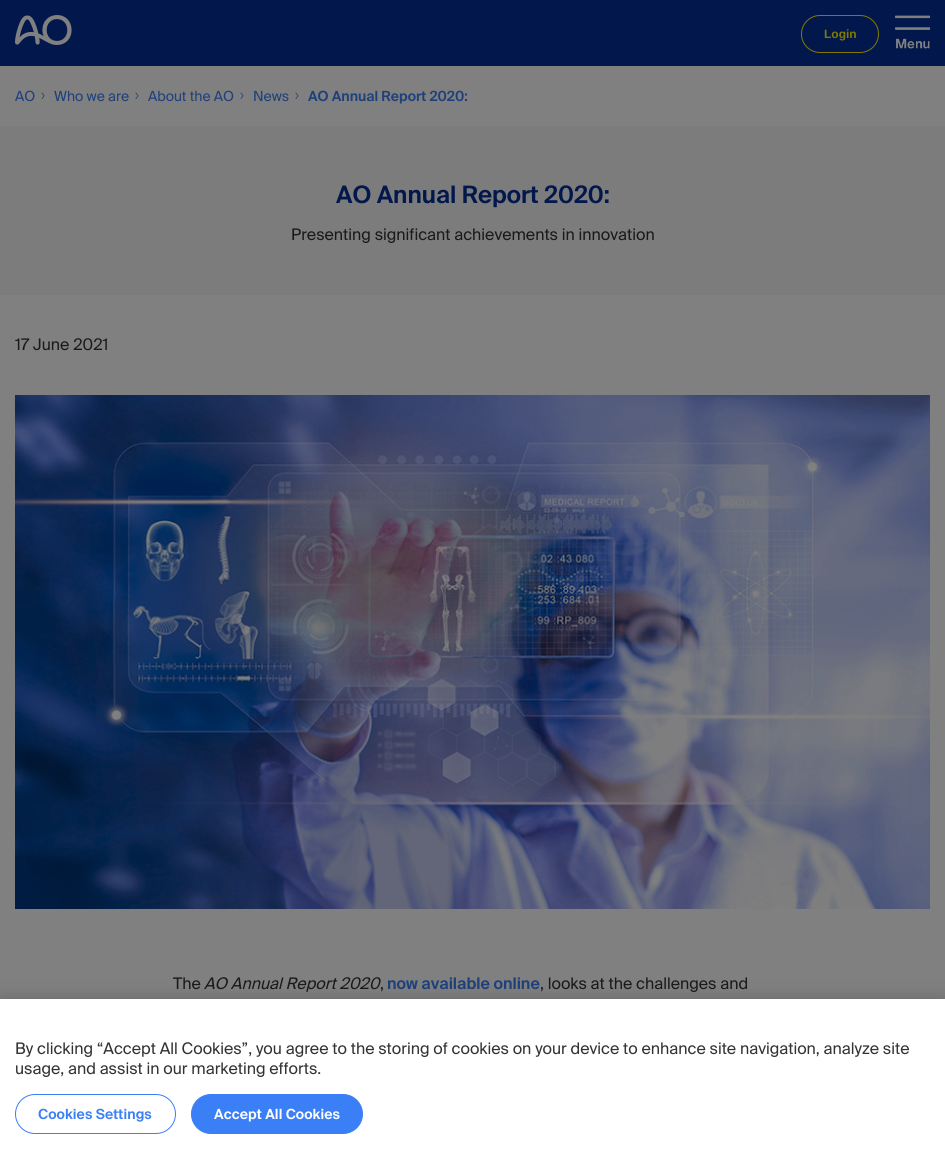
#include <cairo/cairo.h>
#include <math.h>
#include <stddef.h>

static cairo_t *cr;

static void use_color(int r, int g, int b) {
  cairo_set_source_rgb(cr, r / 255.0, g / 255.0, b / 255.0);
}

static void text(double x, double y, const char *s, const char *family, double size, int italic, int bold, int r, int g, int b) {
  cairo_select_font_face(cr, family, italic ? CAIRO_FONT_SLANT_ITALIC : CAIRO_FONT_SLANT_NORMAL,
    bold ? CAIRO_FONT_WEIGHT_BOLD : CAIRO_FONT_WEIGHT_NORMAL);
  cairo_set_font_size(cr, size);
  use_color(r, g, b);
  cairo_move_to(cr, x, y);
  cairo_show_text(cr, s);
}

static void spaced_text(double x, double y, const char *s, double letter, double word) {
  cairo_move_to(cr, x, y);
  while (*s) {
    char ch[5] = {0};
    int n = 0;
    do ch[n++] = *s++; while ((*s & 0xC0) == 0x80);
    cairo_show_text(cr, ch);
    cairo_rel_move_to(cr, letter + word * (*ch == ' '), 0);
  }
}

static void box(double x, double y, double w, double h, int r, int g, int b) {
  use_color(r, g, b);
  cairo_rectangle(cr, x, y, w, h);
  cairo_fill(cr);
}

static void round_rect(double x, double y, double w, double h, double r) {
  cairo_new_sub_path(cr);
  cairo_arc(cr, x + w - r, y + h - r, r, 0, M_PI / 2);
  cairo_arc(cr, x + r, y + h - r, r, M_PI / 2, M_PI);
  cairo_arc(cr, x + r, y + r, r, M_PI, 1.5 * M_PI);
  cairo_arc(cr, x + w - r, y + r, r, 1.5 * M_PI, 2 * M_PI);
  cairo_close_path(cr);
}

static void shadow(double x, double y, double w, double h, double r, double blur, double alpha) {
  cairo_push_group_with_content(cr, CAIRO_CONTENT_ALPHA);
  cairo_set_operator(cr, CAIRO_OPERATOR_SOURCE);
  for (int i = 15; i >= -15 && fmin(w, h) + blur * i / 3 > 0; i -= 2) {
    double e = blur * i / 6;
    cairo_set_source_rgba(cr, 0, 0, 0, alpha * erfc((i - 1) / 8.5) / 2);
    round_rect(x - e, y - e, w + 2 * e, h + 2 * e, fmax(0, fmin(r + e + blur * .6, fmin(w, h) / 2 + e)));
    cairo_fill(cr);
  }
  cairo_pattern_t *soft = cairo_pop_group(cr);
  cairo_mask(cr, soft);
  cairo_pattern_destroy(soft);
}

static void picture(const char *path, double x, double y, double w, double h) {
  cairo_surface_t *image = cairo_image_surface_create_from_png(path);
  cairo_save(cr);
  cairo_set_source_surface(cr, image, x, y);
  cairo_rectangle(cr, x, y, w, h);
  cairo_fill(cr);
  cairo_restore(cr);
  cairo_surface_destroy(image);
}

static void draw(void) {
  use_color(128, 128, 128);
  cairo_paint(cr);
  box(0, 0, 945, 66, 2, 23, 76);
  picture("img_01.png", 15, 15, 57, 30);
  round_rect(801.5, 15.5, 77, 37, 18.5);
  use_color(128, 123, 0);
  cairo_set_line_width(cr, 1);
  cairo_stroke(cr);
  picture("img_02.png", 895, 15, 35, 34);
  picture("img_03.png", 41, 92, 4, 7);
  picture("img_04.png", 135, 92, 4, 7);
  picture("img_05.png", 240, 92, 4, 8);
  picture("img_06.png", 295, 92, 4, 8);
  box(0, 126, 945, 169, 124, 124, 124);
  picture("img_07.png", 15, 395, 915, 514);
  use_color(0, 0, 0);
  shadow(0, 999, 945, 150, 0, 9, 0.2);
  box(0, 999, 945, 150, 255, 255, 255);
  round_rect(15.5, 1094.5, 160, 39, 19.5);
  use_color(59, 127, 246);
  cairo_stroke(cr);
  round_rect(191.5, 1094.5, 171, 39, 19.5);
  cairo_fill_preserve(cr);
  cairo_stroke(cr);
  text(824, 38, "Login", "Liberation Sans", 12, 0, 1, 128, 123, 0);
  text(15, 101, "AO", "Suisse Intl", 14, 0, 0, 30, 64, 123);
  text(54, 101, "Who we are", "Suisse Intl", 14, 0, 0, 30, 64, 123);
  text(148, 101, "About the AO", "Suisse Intl", 14, 0, 0, 30, 64, 123);
  text(253, 101, "News", "Suisse Intl", 14, 0, 0, 30, 64, 123);
  text(308, 101, "AO Annual Report 2020:", "Suisse Intl SemiBold", 14, 0, 0, 30, 64, 123);
  text(336, 203, "AO Annual Report 2020:", "Suisse Intl SemiBold", 24, 0, 0, 2, 23, 76);
  text(291, 240, "Presenting significant achievements in innovation", "Suisse Intl", 16, 0, 0, 26, 26, 26);
  text(15, 350, "17 June 2021", "Suisse Intl", 16, 0, 0, 26, 26, 26);
  text(173, 989, "The", "Suisse Intl", 16, 0, 0, 26, 26, 26);
  text(204, 989, "AO Annual Report 2020", "Suisse Intl", 16, 1, 0, 26, 26, 26);
  text(380, 989, ",", "Suisse Intl", 16, 0, 0, 26, 26, 26);
  text(387, 989, "now available online", "Suisse Intl SemiBold", 16, 0, 0, 30, 64, 123);
  text(540, 989, ", looks at the challenges and", "Suisse Intl", 16, 0, 0, 26, 26, 26);
  text(15, 1054, "By clicking “Accept All Cookies”, you agree to the storing of cookies on your device to enhance site navigation, analyze site", "Suisse Intl", 16, 0, 0, 51, 51, 51);
  text(15, 1074, "usage, and assist in our marketing efforts.", "Suisse Intl", 16, 0, 0, 51, 51, 51);
  cairo_select_font_face(cr, "Suisse Intl SemiBold", CAIRO_FONT_SLANT_NORMAL, CAIRO_FONT_WEIGHT_NORMAL);
  cairo_set_font_size(cr, 14);
  use_color(59, 127, 246);
  spaced_text(38, 1119, "Cookies Settings", 0.1, 0);
  use_color(255, 255, 255);
  spaced_text(214, 1119, "Accept All Cookies", 0.1, 0);
}

int main(void) {
  cairo_surface_t *surface = cairo_image_surface_create(CAIRO_FORMAT_RGB24, 945, 1149);
  cr = cairo_create(surface);
  cairo_font_options_t *options = cairo_font_options_create();
  cairo_font_options_set_hint_metrics(options, CAIRO_HINT_METRICS_OFF);
  cairo_font_options_set_hint_style(options, CAIRO_HINT_STYLE_NONE);
  cairo_set_font_options(cr, options);
  cairo_set_miter_limit(cr, 4);
  draw();
  cairo_surface_write_to_png(surface, "out.png");
  cairo_font_options_destroy(options);
  cairo_destroy(cr);
  cairo_surface_destroy(surface);
  return 0;
}
